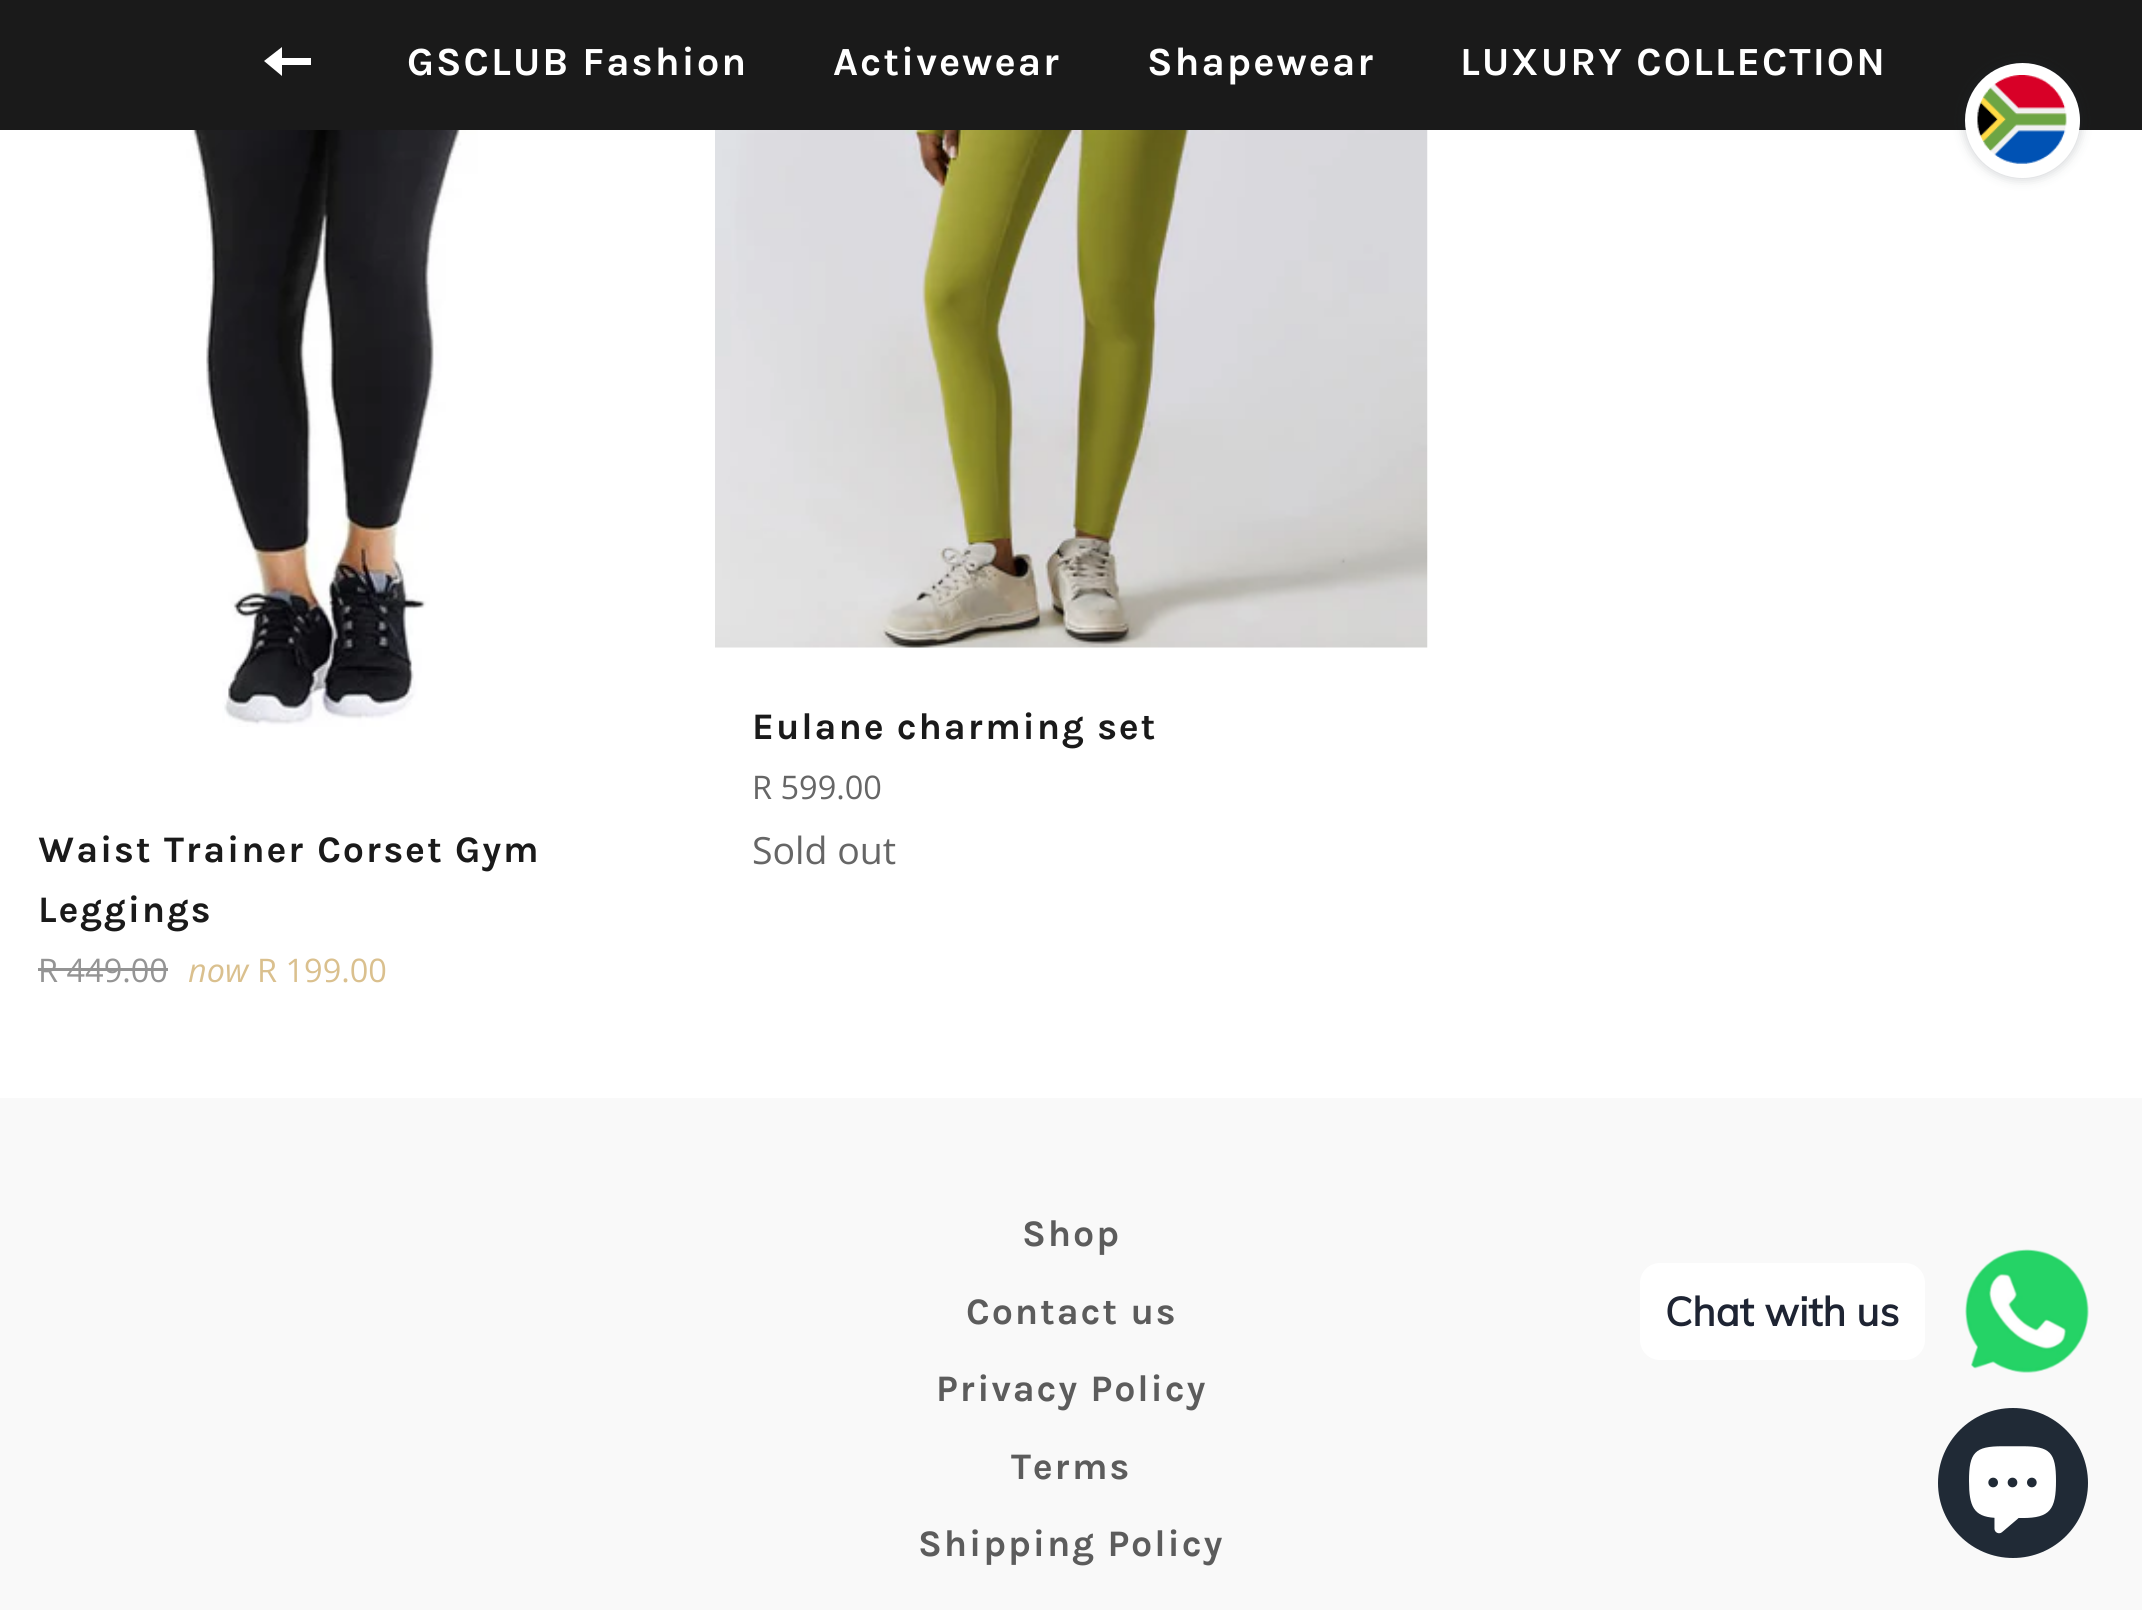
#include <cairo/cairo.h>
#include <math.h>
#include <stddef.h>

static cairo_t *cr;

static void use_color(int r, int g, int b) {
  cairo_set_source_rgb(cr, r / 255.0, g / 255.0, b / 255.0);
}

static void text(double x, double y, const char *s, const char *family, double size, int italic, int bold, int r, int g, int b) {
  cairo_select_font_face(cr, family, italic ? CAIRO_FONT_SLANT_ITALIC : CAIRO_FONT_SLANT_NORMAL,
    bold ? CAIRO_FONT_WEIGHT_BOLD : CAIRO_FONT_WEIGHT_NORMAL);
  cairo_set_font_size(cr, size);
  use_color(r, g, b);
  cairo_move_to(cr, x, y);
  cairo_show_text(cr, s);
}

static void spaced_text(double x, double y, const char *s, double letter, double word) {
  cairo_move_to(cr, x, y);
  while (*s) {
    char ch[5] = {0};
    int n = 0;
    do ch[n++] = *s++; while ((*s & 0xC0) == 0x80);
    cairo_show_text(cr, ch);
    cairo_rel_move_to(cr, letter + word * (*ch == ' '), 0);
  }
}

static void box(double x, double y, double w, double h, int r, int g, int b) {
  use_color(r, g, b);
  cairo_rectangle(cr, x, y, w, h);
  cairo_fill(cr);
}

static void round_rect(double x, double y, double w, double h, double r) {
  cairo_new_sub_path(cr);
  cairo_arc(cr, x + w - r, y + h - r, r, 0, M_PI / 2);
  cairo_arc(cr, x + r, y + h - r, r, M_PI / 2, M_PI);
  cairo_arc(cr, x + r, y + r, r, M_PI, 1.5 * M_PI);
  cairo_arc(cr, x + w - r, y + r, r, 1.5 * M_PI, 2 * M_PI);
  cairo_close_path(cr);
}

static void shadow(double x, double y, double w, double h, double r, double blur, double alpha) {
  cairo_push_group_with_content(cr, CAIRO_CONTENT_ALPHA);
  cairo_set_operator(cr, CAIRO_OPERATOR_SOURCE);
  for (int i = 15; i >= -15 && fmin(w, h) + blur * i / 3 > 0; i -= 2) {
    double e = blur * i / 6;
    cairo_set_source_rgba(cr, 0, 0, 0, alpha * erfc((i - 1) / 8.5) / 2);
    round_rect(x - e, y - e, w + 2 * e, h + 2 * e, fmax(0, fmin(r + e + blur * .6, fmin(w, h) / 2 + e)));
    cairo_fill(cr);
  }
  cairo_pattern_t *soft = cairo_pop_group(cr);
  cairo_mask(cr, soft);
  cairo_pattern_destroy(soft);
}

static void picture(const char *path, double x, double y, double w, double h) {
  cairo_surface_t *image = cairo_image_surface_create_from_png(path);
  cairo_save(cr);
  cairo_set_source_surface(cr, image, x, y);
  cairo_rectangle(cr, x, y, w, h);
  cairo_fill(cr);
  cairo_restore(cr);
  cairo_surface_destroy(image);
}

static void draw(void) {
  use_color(255, 255, 255);
  cairo_paint(cr);
  box(0, 0, 2142, 130, 26, 26, 26);
  use_color(255, 255, 255);
  cairo_new_path(cr);
  cairo_move_to(cr, 282, 58);
  cairo_line_to(cr, 282, 47);
  cairo_line_to(cr, 264, 61);
  cairo_line_to(cr, 282, 76);
  cairo_line_to(cr, 282, 65);
  cairo_line_to(cr, 311, 65);
  cairo_line_to(cr, 311, 58);
  cairo_close_path(cr);
  cairo_fill(cr);
  picture("img_01.png", 715, 130, 713, 518);
  picture("img_02.png", 158, 130, 342, 597);
  box(38, 968, 130, 3, 148, 148, 148);
  box(0, 1098, 2142, 512, 249, 249, 249);
  use_color(33, 43, 54);
  shadow(1965, 63, 115, 115, 57.5, 6, 0.25);
  use_color(255, 255, 255);
  cairo_arc(cr, 2022.5, 120.5, 57.5, 0, 2 * M_PI);
  cairo_fill(cr);
  picture("img_03.png", 1977, 75, 90, 89);
  picture("img_04.png", 1965, 1249, 124, 124);
  round_rect(1640, 1263, 285, 97, 20);
  cairo_fill(cr);
  use_color(32, 42, 54);
  cairo_arc(cr, 2013, 1483, 75, 0, 2 * M_PI);
  cairo_fill(cr);
  picture("img_05.png", 1969, 1446, 87, 88);
  cairo_select_font_face(cr, "Karla", CAIRO_FONT_SLANT_NORMAL, CAIRO_FONT_WEIGHT_BOLD);
  cairo_set_font_size(cr, 40);
  use_color(255, 255, 255);
  spaced_text(407, 75, "GSCLUB Fashion", 2, 0);
  spaced_text(833, 75, "Activewear", 2, 0);
  spaced_text(1147, 75, "Shapewear", 2, 0);
  spaced_text(1460, 75, "LUXURY COLLECTION", 2, 0);
  cairo_set_font_size(cr, 37.5);
  use_color(26, 26, 26);
  spaced_text(752, 739, "Eulane charming set", 1.9, 0);
  text(752, 799, "R 599.00", "Open Sans", 32.5, 0, 0, 102, 102, 102);
  text(752, 864, "Sold out", "Open Sans", 37.5, 0, 0, 102, 102, 102);
  cairo_select_font_face(cr, "Karla", CAIRO_FONT_SLANT_NORMAL, CAIRO_FONT_WEIGHT_BOLD);
  use_color(26, 26, 26);
  spaced_text(38, 862, "Waist Trainer Corset Gym", 1.9, 0);
  spaced_text(38, 922, "Leggings", 1.9, 0);
  text(38, 982, "R 449.00", "Open Sans", 32.5, 0, 0, 148, 148, 148);
  text(188, 982, "now", "Open Sans", 32.5, 1, 0, 218, 192, 142);
  text(257, 982, "R 199.00", "Open Sans", 32.5, 0, 0, 218, 192, 142);
  cairo_select_font_face(cr, "Karla", CAIRO_FONT_SLANT_NORMAL, CAIRO_FONT_WEIGHT_BOLD);
  cairo_set_font_size(cr, 37.5);
  use_color(92, 92, 92);
  spaced_text(1022, 1246, "Shop", 1.9, 0);
  spaced_text(966, 1324, "Contact us", 1.9, 0);
  spaced_text(936, 1401, "Privacy Policy", 1.9, 0);
  spaced_text(1011, 1479, "Terms", 1.9, 0);
  spaced_text(918, 1556, "Shipping Policy", 1.9, 0);
  text(1665, 1326, "Chat with us", "Muli", 40, 0, 1, 30, 36, 51);
}

int main(void) {
  cairo_surface_t *surface = cairo_image_surface_create(CAIRO_FORMAT_RGB24, 2142, 1610);
  cr = cairo_create(surface);
  cairo_font_options_t *options = cairo_font_options_create();
  cairo_font_options_set_hint_metrics(options, CAIRO_HINT_METRICS_OFF);
  cairo_font_options_set_hint_style(options, CAIRO_HINT_STYLE_NONE);
  cairo_set_font_options(cr, options);
  cairo_set_miter_limit(cr, 4);
  draw();
  cairo_surface_write_to_png(surface, "out.png");
  cairo_font_options_destroy(options);
  cairo_destroy(cr);
  cairo_surface_destroy(surface);
  return 0;
}
